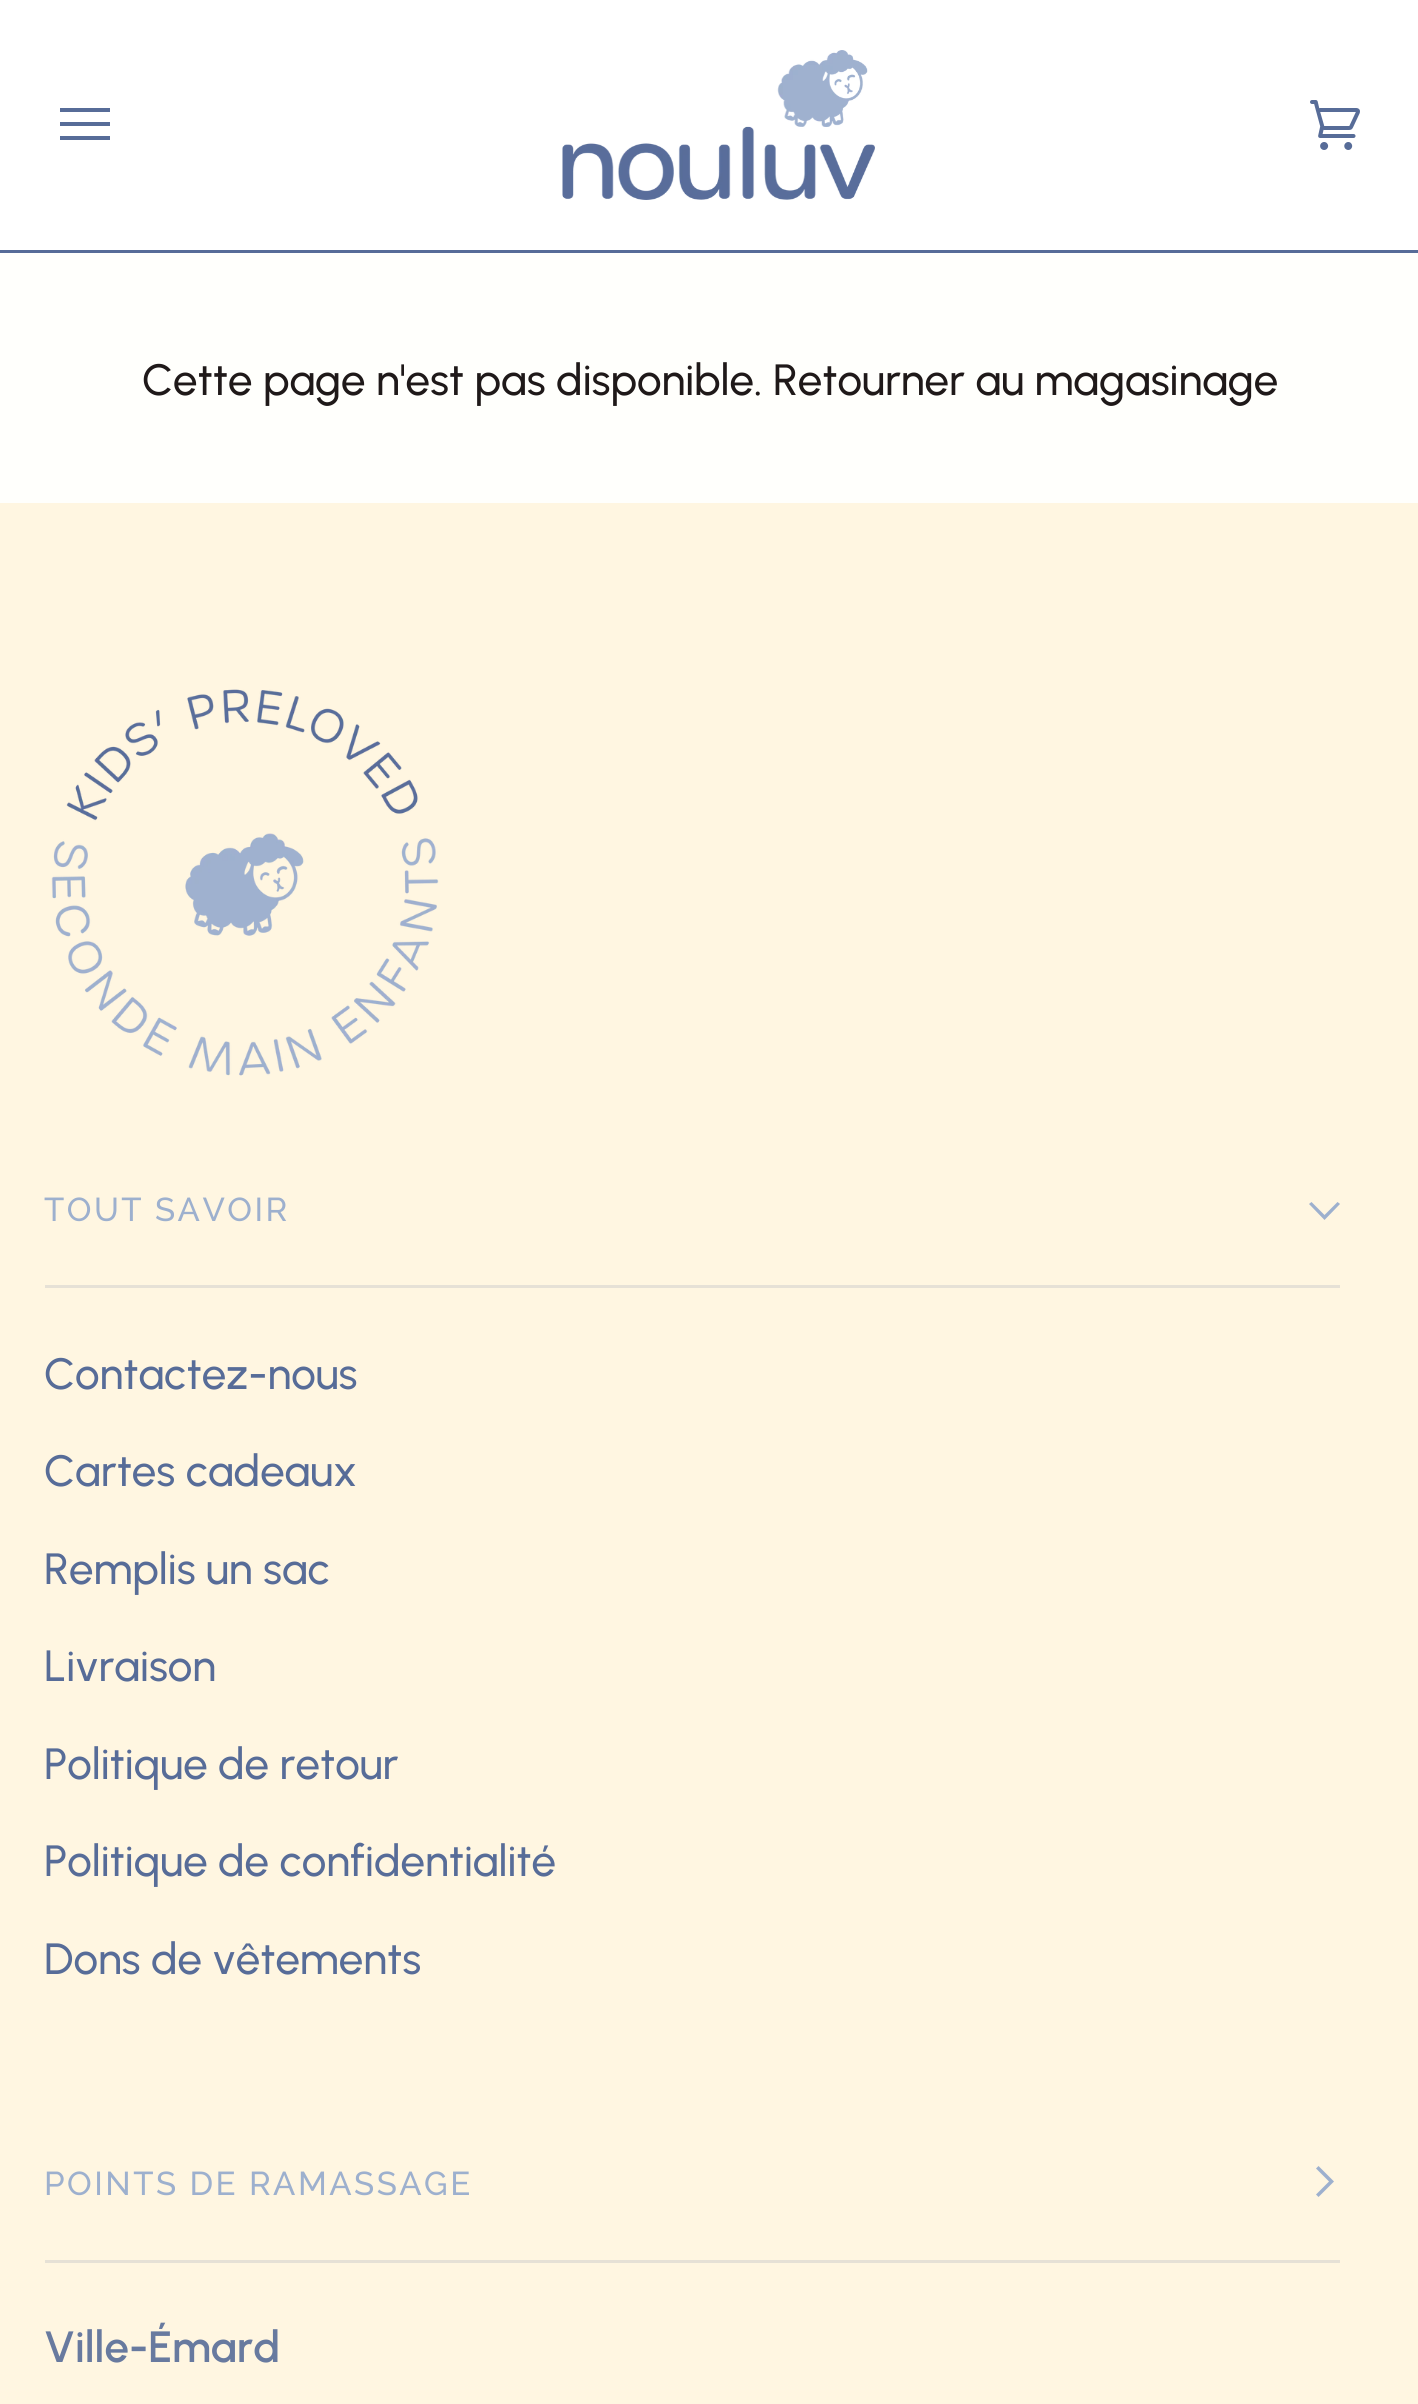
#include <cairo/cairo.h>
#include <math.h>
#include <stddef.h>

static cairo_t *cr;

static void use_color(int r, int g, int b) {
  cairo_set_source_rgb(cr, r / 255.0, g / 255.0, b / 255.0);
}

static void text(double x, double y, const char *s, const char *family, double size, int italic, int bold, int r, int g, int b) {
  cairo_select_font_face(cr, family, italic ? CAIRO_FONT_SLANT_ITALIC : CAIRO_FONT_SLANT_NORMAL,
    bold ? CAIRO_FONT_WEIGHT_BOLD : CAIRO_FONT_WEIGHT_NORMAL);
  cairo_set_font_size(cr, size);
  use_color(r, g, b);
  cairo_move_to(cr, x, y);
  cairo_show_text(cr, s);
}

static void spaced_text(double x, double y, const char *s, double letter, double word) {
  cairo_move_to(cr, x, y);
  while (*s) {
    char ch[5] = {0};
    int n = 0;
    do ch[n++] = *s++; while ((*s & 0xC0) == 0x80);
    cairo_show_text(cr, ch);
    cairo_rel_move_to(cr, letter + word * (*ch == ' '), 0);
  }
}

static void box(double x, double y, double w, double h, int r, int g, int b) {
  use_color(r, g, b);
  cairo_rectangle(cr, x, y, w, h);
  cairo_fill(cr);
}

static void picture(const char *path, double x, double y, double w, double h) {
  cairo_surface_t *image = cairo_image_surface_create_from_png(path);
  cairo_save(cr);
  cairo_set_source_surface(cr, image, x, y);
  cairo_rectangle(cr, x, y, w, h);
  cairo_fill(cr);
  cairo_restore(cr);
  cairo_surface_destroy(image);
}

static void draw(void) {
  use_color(255, 255, 252);
  cairo_paint(cr);
  box(0, 0, 1418, 250, 255, 255, 255);
  box(0, 250, 1418, 3, 87, 108, 152);
  cairo_new_path(cr);
  cairo_move_to(cr, 60, 108);
  cairo_line_to(cr, 110, 108);
  cairo_line_to(cr, 110, 112);
  cairo_line_to(cr, 60, 112);
  cairo_close_path(cr);
  cairo_move_to(cr, 60, 122);
  cairo_line_to(cr, 110, 122);
  cairo_line_to(cr, 110, 126);
  cairo_line_to(cr, 60, 126);
  cairo_close_path(cr);
  cairo_move_to(cr, 60, 136);
  cairo_line_to(cr, 110, 136);
  cairo_line_to(cr, 110, 140);
  cairo_line_to(cr, 60, 140);
  cairo_close_path(cr);
  cairo_fill(cr);
  picture("img_01.png", 562, 50, 313, 150);
  picture("img_02.png", 1310, 100, 50, 50);
  box(0, 503, 1418, 1901, 255, 246, 225);
  picture("img_03.png", 51, 689, 388, 387);
  box(45, 1285, 1295, 3, 230, 225, 214);
  use_color(157, 176, 206);
  cairo_set_fill_rule(cr, CAIRO_FILL_RULE_EVEN_ODD);
  cairo_new_path(cr);
  cairo_move_to(cr, 1324.5, 1215);
  cairo_line_to(cr, 1337.5, 1202);
  cairo_line_to(cr, 1340, 1204);
  cairo_line_to(cr, 1324.5, 1220);
  cairo_line_to(cr, 1309, 1204);
  cairo_line_to(cr, 1311.5, 1202);
  cairo_close_path(cr);
  cairo_fill(cr);
  box(45, 2260, 1295, 3, 230, 225, 214);
  use_color(157, 176, 206);
  cairo_new_path(cr);
  cairo_move_to(cr, 1329, 2181.5);
  cairo_line_to(cr, 1316, 2168.5);
  cairo_line_to(cr, 1318.5, 2166);
  cairo_line_to(cr, 1334, 2181.5);
  cairo_line_to(cr, 1318.5, 2197);
  cairo_line_to(cr, 1316, 2194.5);
  cairo_close_path(cr);
  cairo_fill(cr);
  text(142, 395, "Cette page n'est pas disponible. Retourner au magasinage", "Urbanist Medium", 43.75, 0, 0, 31, 25, 25);
  cairo_select_font_face(cr, "Raleway Medium", CAIRO_FONT_SLANT_NORMAL, CAIRO_FONT_WEIGHT_NORMAL);
  cairo_set_font_size(cr, 33);
  use_color(157, 176, 206);
  spaced_text(44, 1221, "TOUT SAVOIR", 2.5, 0);
  text(44, 1389, "Contactez-nous", "Urbanist Medium", 43.75, 0, 0, 87, 108, 152);
  text(44, 1486, "Cartes cadeaux", "Urbanist Medium", 43.75, 0, 0, 87, 108, 152);
  text(44, 1584, "Remplis un sac", "Urbanist Medium", 43.75, 0, 0, 87, 108, 152);
  text(44, 1681, "Livraison", "Urbanist Medium", 43.75, 0, 0, 87, 108, 152);
  text(44, 1779, "Politique de retour", "Urbanist Medium", 43.75, 0, 0, 87, 108, 152);
  text(44, 1876, "Politique de confidentialité", "Urbanist Medium", 43.75, 0, 0, 87, 108, 152);
  text(44, 1974, "Dons de vêtements", "Urbanist Medium", 43.75, 0, 0, 87, 108, 152);
  cairo_select_font_face(cr, "Raleway Medium", CAIRO_FONT_SLANT_NORMAL, CAIRO_FONT_WEIGHT_NORMAL);
  cairo_set_font_size(cr, 33);
  use_color(157, 176, 206);
  spaced_text(44, 2195, "POINTS DE RAMASSAGE", 2.5, 0);
  text(44, 2362, "Ville-Émard", "Urbanist SemiBold", 43.75, 0, 0, 104, 122, 159);
}

int main(void) {
  cairo_surface_t *surface = cairo_image_surface_create(CAIRO_FORMAT_RGB24, 1418, 2404);
  cr = cairo_create(surface);
  cairo_font_options_t *options = cairo_font_options_create();
  cairo_font_options_set_hint_metrics(options, CAIRO_HINT_METRICS_OFF);
  cairo_font_options_set_hint_style(options, CAIRO_HINT_STYLE_NONE);
  cairo_set_font_options(cr, options);
  cairo_set_miter_limit(cr, 4);
  draw();
  cairo_surface_write_to_png(surface, "out.png");
  cairo_font_options_destroy(options);
  cairo_destroy(cr);
  cairo_surface_destroy(surface);
  return 0;
}
